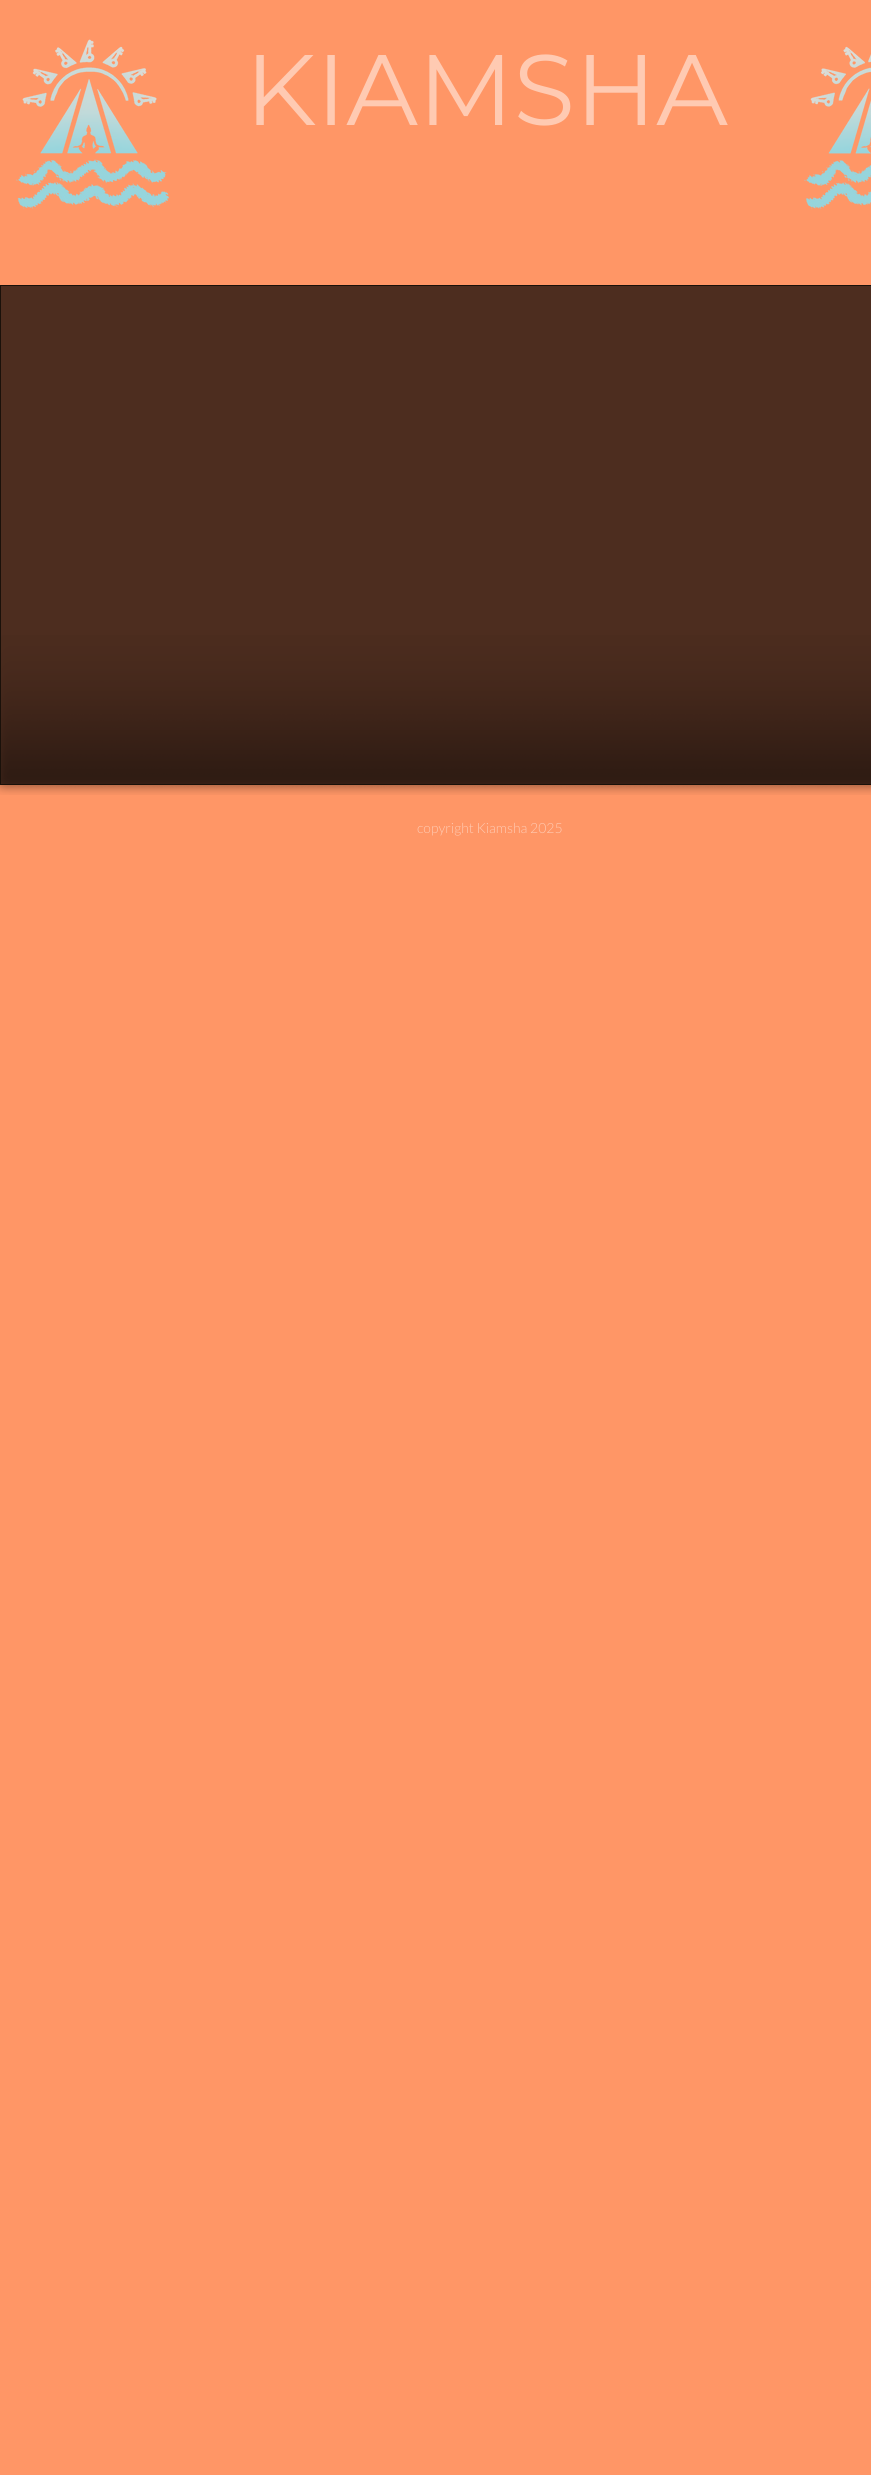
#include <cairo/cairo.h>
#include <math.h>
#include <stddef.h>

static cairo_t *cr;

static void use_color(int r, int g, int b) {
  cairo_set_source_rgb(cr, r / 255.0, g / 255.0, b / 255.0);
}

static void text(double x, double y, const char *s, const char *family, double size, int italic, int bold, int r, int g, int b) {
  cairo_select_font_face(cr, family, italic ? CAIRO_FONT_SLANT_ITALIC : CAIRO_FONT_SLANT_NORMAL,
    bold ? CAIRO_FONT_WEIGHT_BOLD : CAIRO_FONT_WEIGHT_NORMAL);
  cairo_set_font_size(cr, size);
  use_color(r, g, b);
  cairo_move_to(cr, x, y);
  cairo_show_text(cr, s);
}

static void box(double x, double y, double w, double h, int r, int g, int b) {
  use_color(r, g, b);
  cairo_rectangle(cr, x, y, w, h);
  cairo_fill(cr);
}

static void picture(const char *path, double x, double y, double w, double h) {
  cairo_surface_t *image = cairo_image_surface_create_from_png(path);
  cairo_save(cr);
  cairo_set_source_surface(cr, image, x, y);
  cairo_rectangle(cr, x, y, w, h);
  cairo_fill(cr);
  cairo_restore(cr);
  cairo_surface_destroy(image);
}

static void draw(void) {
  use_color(255, 150, 102);
  cairo_paint(cr);
  picture("img_01.png", 16, 39, 153, 170);
  picture("img_02.png", 804, 46, 67, 164);
  box(1, 286, 870, 498, 77, 45, 31);
  picture("img_03.png", 0, 635, 35, 160);
  picture("img_04.png", 35, 635, 836, 160);
  cairo_rectangle(cr, 0.5, 285.5, 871, 499);
  use_color(26, 17, 10);
  cairo_set_line_width(cr, 1);
  cairo_stroke(cr);
  text(245, 125, "KIAMSHA", "Montserrat", 100, 0, 0, 255, 202, 178);
  text(417, 833, "copyright Kiamsha 2025", "Lato Light", 14, 0, 0, 255, 202, 178);
}

int main(void) {
  cairo_surface_t *surface = cairo_image_surface_create(CAIRO_FORMAT_RGB24, 871, 2475);
  cr = cairo_create(surface);
  cairo_font_options_t *options = cairo_font_options_create();
  cairo_font_options_set_hint_metrics(options, CAIRO_HINT_METRICS_OFF);
  cairo_font_options_set_hint_style(options, CAIRO_HINT_STYLE_NONE);
  cairo_set_font_options(cr, options);
  cairo_set_miter_limit(cr, 4);
  draw();
  cairo_surface_write_to_png(surface, "out.png");
  cairo_font_options_destroy(options);
  cairo_destroy(cr);
  cairo_surface_destroy(surface);
  return 0;
}
